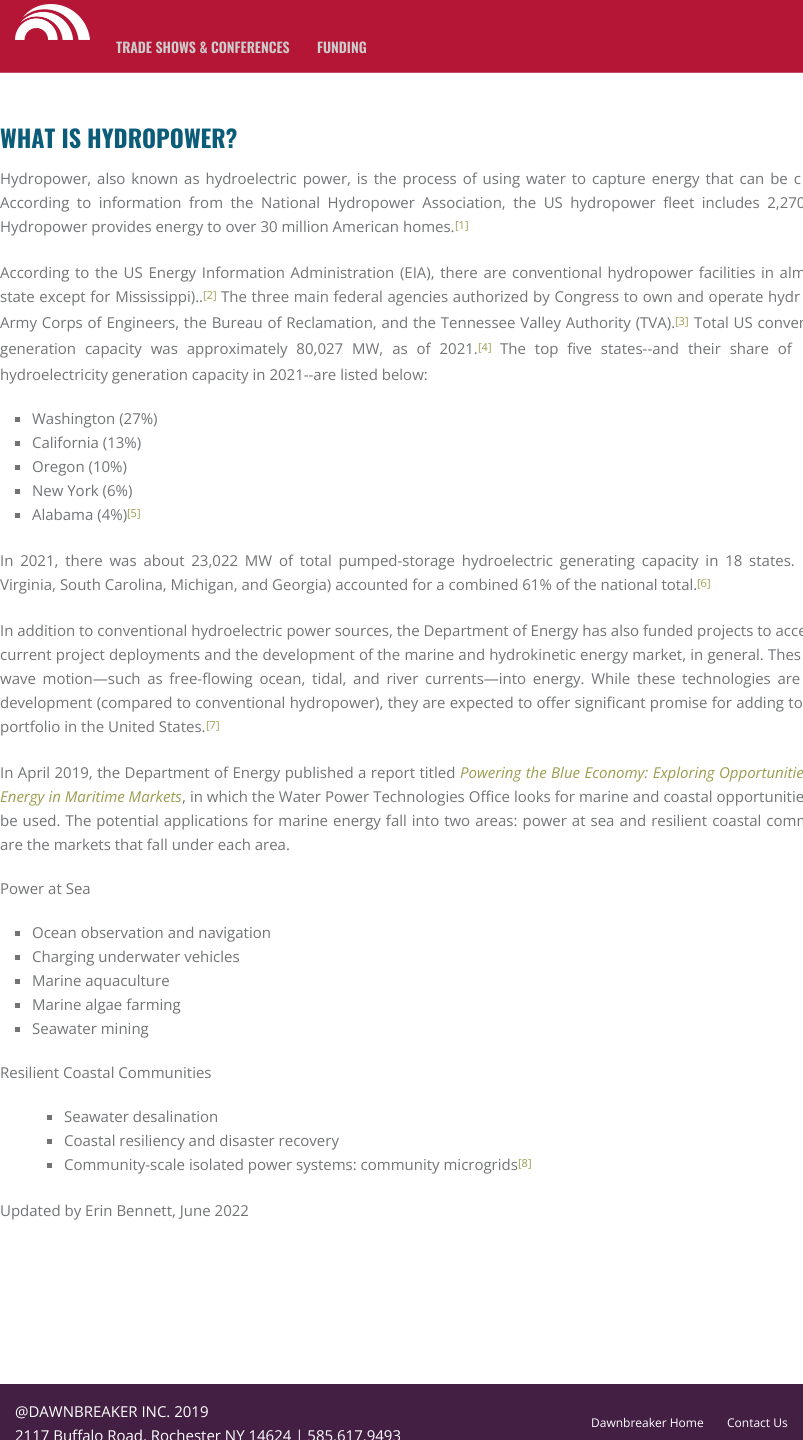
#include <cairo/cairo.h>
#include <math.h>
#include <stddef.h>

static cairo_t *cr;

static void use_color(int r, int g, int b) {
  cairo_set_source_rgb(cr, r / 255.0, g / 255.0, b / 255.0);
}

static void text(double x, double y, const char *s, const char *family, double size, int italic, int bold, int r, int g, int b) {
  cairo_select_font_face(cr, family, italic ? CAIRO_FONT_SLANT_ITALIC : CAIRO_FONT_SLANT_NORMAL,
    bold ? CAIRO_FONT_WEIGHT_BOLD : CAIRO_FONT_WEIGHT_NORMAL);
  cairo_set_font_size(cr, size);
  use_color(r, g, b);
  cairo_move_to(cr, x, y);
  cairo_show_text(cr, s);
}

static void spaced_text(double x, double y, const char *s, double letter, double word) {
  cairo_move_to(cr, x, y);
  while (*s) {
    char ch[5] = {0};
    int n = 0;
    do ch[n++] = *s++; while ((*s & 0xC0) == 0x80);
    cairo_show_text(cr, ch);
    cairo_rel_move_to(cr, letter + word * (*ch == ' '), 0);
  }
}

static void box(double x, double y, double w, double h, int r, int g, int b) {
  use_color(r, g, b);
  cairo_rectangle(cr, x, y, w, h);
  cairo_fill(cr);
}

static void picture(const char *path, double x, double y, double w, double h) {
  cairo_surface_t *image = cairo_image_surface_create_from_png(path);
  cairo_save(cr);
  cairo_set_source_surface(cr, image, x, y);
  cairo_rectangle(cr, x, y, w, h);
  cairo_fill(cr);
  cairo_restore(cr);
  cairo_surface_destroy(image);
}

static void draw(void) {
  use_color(255, 255, 255);
  cairo_paint(cr);
  box(0, 0, 803, 72, 182, 22, 54);
  box(0, 72, 803, 1, 192, 80, 103);
  picture("img_01.png", 15, 4, 75, 36);
  box(15, 417, 5, 5, 113, 115, 117);
  box(15, 441, 5, 5, 113, 115, 117);
  box(15, 465, 5, 5, 113, 115, 117);
  box(15, 489, 5, 5, 113, 115, 117);
  box(15, 513, 5, 5, 113, 115, 117);
  box(15, 931, 5, 5, 113, 115, 117);
  box(15, 955, 5, 5, 113, 115, 117);
  box(15, 979, 5, 5, 113, 115, 117);
  box(15, 1003, 5, 5, 113, 115, 117);
  box(15, 1027, 5, 5, 113, 115, 117);
  box(47, 1115, 5, 5, 113, 115, 117);
  box(47, 1139, 5, 5, 113, 115, 117);
  box(47, 1163, 5, 5, 113, 115, 117);
  box(0, 1384, 803, 56, 66, 31, 67);
  text(116, 53, "TRADE SHOWS & CONFERENCES", "Oswald SemiBold", 14, 0, 0, 204, 204, 204);
  text(317, 53, "FUNDING", "Oswald SemiBold", 14, 0, 0, 204, 204, 204);
  text(0, 148, "WHAT IS HYDROPOWER?", "Oswald", 24, 0, 1, 11, 92, 121);
  cairo_select_font_face(cr, "Open Sans", CAIRO_FONT_SLANT_NORMAL, CAIRO_FONT_WEIGHT_NORMAL);
  cairo_set_font_size(cr, 15);
  use_color(113, 115, 117);
  spaced_text(0, 184, "Hydropower, also known as hydroelectric power, is the process of using water to capture energy that can be c", 0, 2);
  spaced_text(0, 208, "According to information from the National Hydropower Association, the US hydropower fleet includes 2,270", 0, 3.6);
  text(0, 232, "Hydropower provides energy to over 30 million American homes.", "Open Sans", 15, 0, 0, 113, 115, 117);
  text(455, 229, "[1]", "Open Sans", 11, 0, 0, 156, 156, 79);
  cairo_set_font_size(cr, 15);
  use_color(113, 115, 117);
  spaced_text(0, 278, "According to the US Energy Information Administration (EIA), there are conventional hydropower facilities in alm", 0, 1.75);
  spaced_text(0, 302, "state except for Mississippi)..", 0, 0.75);
  text(203, 299, "[2]", "Open Sans", 11, 0, 0, 156, 156, 79);
  cairo_set_font_size(cr, 15);
  use_color(113, 115, 117);
  spaced_text(221, 302, "The three main federal agencies authorized by Congress to own and operate hydr", 0, 0.75);
  spaced_text(0, 328, "Army Corps of Engineers, the Bureau of Reclamation, and the Tennessee Valley Authority (TVA).", 0, 0.9);
  text(675, 325, "[3]", "Open Sans", 11, 0, 0, 156, 156, 79);
  cairo_set_font_size(cr, 15);
  use_color(113, 115, 117);
  spaced_text(694, 328, "Total US conven", 0, 0.9);
  spaced_text(0, 354, "generation capacity was approximately 80,027 MW, as of 2021.", 0, 5);
  text(478, 351, "[4]", "Open Sans", 11, 0, 0, 156, 156, 79);
  cairo_set_font_size(cr, 15);
  use_color(113, 115, 117);
  spaced_text(500, 354, "The top five states--and their share of", 0, 5);
  text(0, 380, "hydroelectricity generation capacity in 2021--are listed below:", "Open Sans", 15, 0, 0, 113, 115, 117);
  text(32, 424, "Washington (27%)", "Open Sans", 15, 0, 0, 113, 115, 117);
  text(32, 448, "California (13%)", "Open Sans", 15, 0, 0, 113, 115, 117);
  text(32, 472, "Oregon (10%)", "Open Sans", 15, 0, 0, 113, 115, 117);
  text(32, 496, "New York (6%)", "Open Sans", 15, 0, 0, 113, 115, 117);
  text(32, 520, "Alabama (4%)", "Open Sans", 15, 0, 0, 113, 115, 117);
  text(127, 517, "[5]", "Open Sans", 11, 0, 0, 156, 156, 79);
  cairo_set_font_size(cr, 15);
  use_color(113, 115, 117);
  spaced_text(0, 566, "In 2021, there was about 23,022 MW of total pumped-storage hydroelectric generating capacity in 18 states.", 0, 2.9);
  text(0, 590, "Virginia, South Carolina, Michigan, and Georgia) accounted for a combined 61% of the national total.", "Open Sans", 15, 0, 0, 113, 115, 117);
  text(697, 587, "[6]", "Open Sans", 11, 0, 0, 156, 156, 79);
  text(0, 636, "In addition to conventional hydroelectric power sources, the Department of Energy has also funded projects to acce", "Open Sans", 15, 0, 0, 113, 115, 117);
  spaced_text(0, 660, "current project deployments and the development of the marine and hydrokinetic energy market, in general. Thes", 0, 0.3);
  spaced_text(0, 684, "wave motion—such as free-flowing ocean, tidal, and river currents—into energy. While these technologies are", 0, 2.75);
  spaced_text(0, 708, "development (compared to conventional hydropower), they are expected to offer significant promise for adding to", 0, 0.4);
  text(0, 732, "portfolio in the United States.", "Open Sans", 15, 0, 0, 113, 115, 117);
  text(206, 729, "[7]", "Open Sans", 11, 0, 0, 156, 156, 79);
  cairo_set_font_size(cr, 15);
  use_color(113, 115, 117);
  spaced_text(0, 778, "In April 2019, the Department of Energy published a report titled", 0, 0.5);
  cairo_select_font_face(cr, "Open Sans", CAIRO_FONT_SLANT_ITALIC, CAIRO_FONT_WEIGHT_NORMAL);
  use_color(156, 156, 79);
  spaced_text(460, 778, "Powering the Blue Economy: Exploring Opportunitie", 0, 0.5);
  text(0, 802, "Energy in Maritime Markets", "Open Sans", 15, 1, 0, 156, 156, 79);
  cairo_select_font_face(cr, "Open Sans", CAIRO_FONT_SLANT_NORMAL, CAIRO_FONT_WEIGHT_NORMAL);
  use_color(113, 115, 117);
  spaced_text(182, 802, ", in which the Water Power Technologies Office looks for marine and coastal opportunitie", 0, 0.1);
  spaced_text(0, 826, "be used. The potential applications for marine energy fall into two areas: power at sea and resilient coastal comm", 0, 1.1);
  text(0, 850, "are the markets that fall under each area.", "Open Sans", 15, 0, 0, 113, 115, 117);
  text(0, 894, "Power at Sea", "Open Sans", 15, 0, 0, 113, 115, 117);
  text(32, 938, "Ocean observation and navigation", "Open Sans", 15, 0, 0, 113, 115, 117);
  text(32, 962, "Charging underwater vehicles", "Open Sans", 15, 0, 0, 113, 115, 117);
  text(32, 986, "Marine aquaculture", "Open Sans", 15, 0, 0, 113, 115, 117);
  text(32, 1010, "Marine algae farming", "Open Sans", 15, 0, 0, 113, 115, 117);
  text(32, 1034, "Seawater mining", "Open Sans", 15, 0, 0, 113, 115, 117);
  text(0, 1078, "Resilient Coastal Communities", "Open Sans", 15, 0, 0, 113, 115, 117);
  text(64, 1122, "Seawater desalination", "Open Sans", 15, 0, 0, 113, 115, 117);
  text(64, 1146, "Coastal resiliency and disaster recovery", "Open Sans", 15, 0, 0, 113, 115, 117);
  text(64, 1170, "Community-scale isolated power systems: community microgrids", "Open Sans", 15, 0, 0, 113, 115, 117);
  text(518, 1167, "[8]", "Open Sans", 11, 0, 0, 156, 156, 79);
  text(0, 1216, "Updated by Erin Bennett, June 2022", "Open Sans", 15, 0, 0, 113, 115, 117);
  text(15, 1417, "@DAWNBREAKER INC. 2019", "Open Sans", 15, 0, 0, 255, 255, 255);
  text(15, 1441, "2117 Buffalo Road, Rochester NY 14624 | 585.617.9493", "Open Sans", 15, 0, 0, 255, 255, 255);
  text(591, 1427, "Dawnbreaker Home", "Open Sans", 12, 0, 0, 255, 255, 255);
  text(727, 1427, "Contact Us", "Open Sans", 12, 0, 0, 255, 255, 255);
}

int main(void) {
  cairo_surface_t *surface = cairo_image_surface_create(CAIRO_FORMAT_RGB24, 803, 1440);
  cr = cairo_create(surface);
  cairo_font_options_t *options = cairo_font_options_create();
  cairo_font_options_set_hint_metrics(options, CAIRO_HINT_METRICS_OFF);
  cairo_font_options_set_hint_style(options, CAIRO_HINT_STYLE_NONE);
  cairo_set_font_options(cr, options);
  cairo_set_miter_limit(cr, 4);
  draw();
  cairo_surface_write_to_png(surface, "out.png");
  cairo_font_options_destroy(options);
  cairo_destroy(cr);
  cairo_surface_destroy(surface);
  return 0;
}
